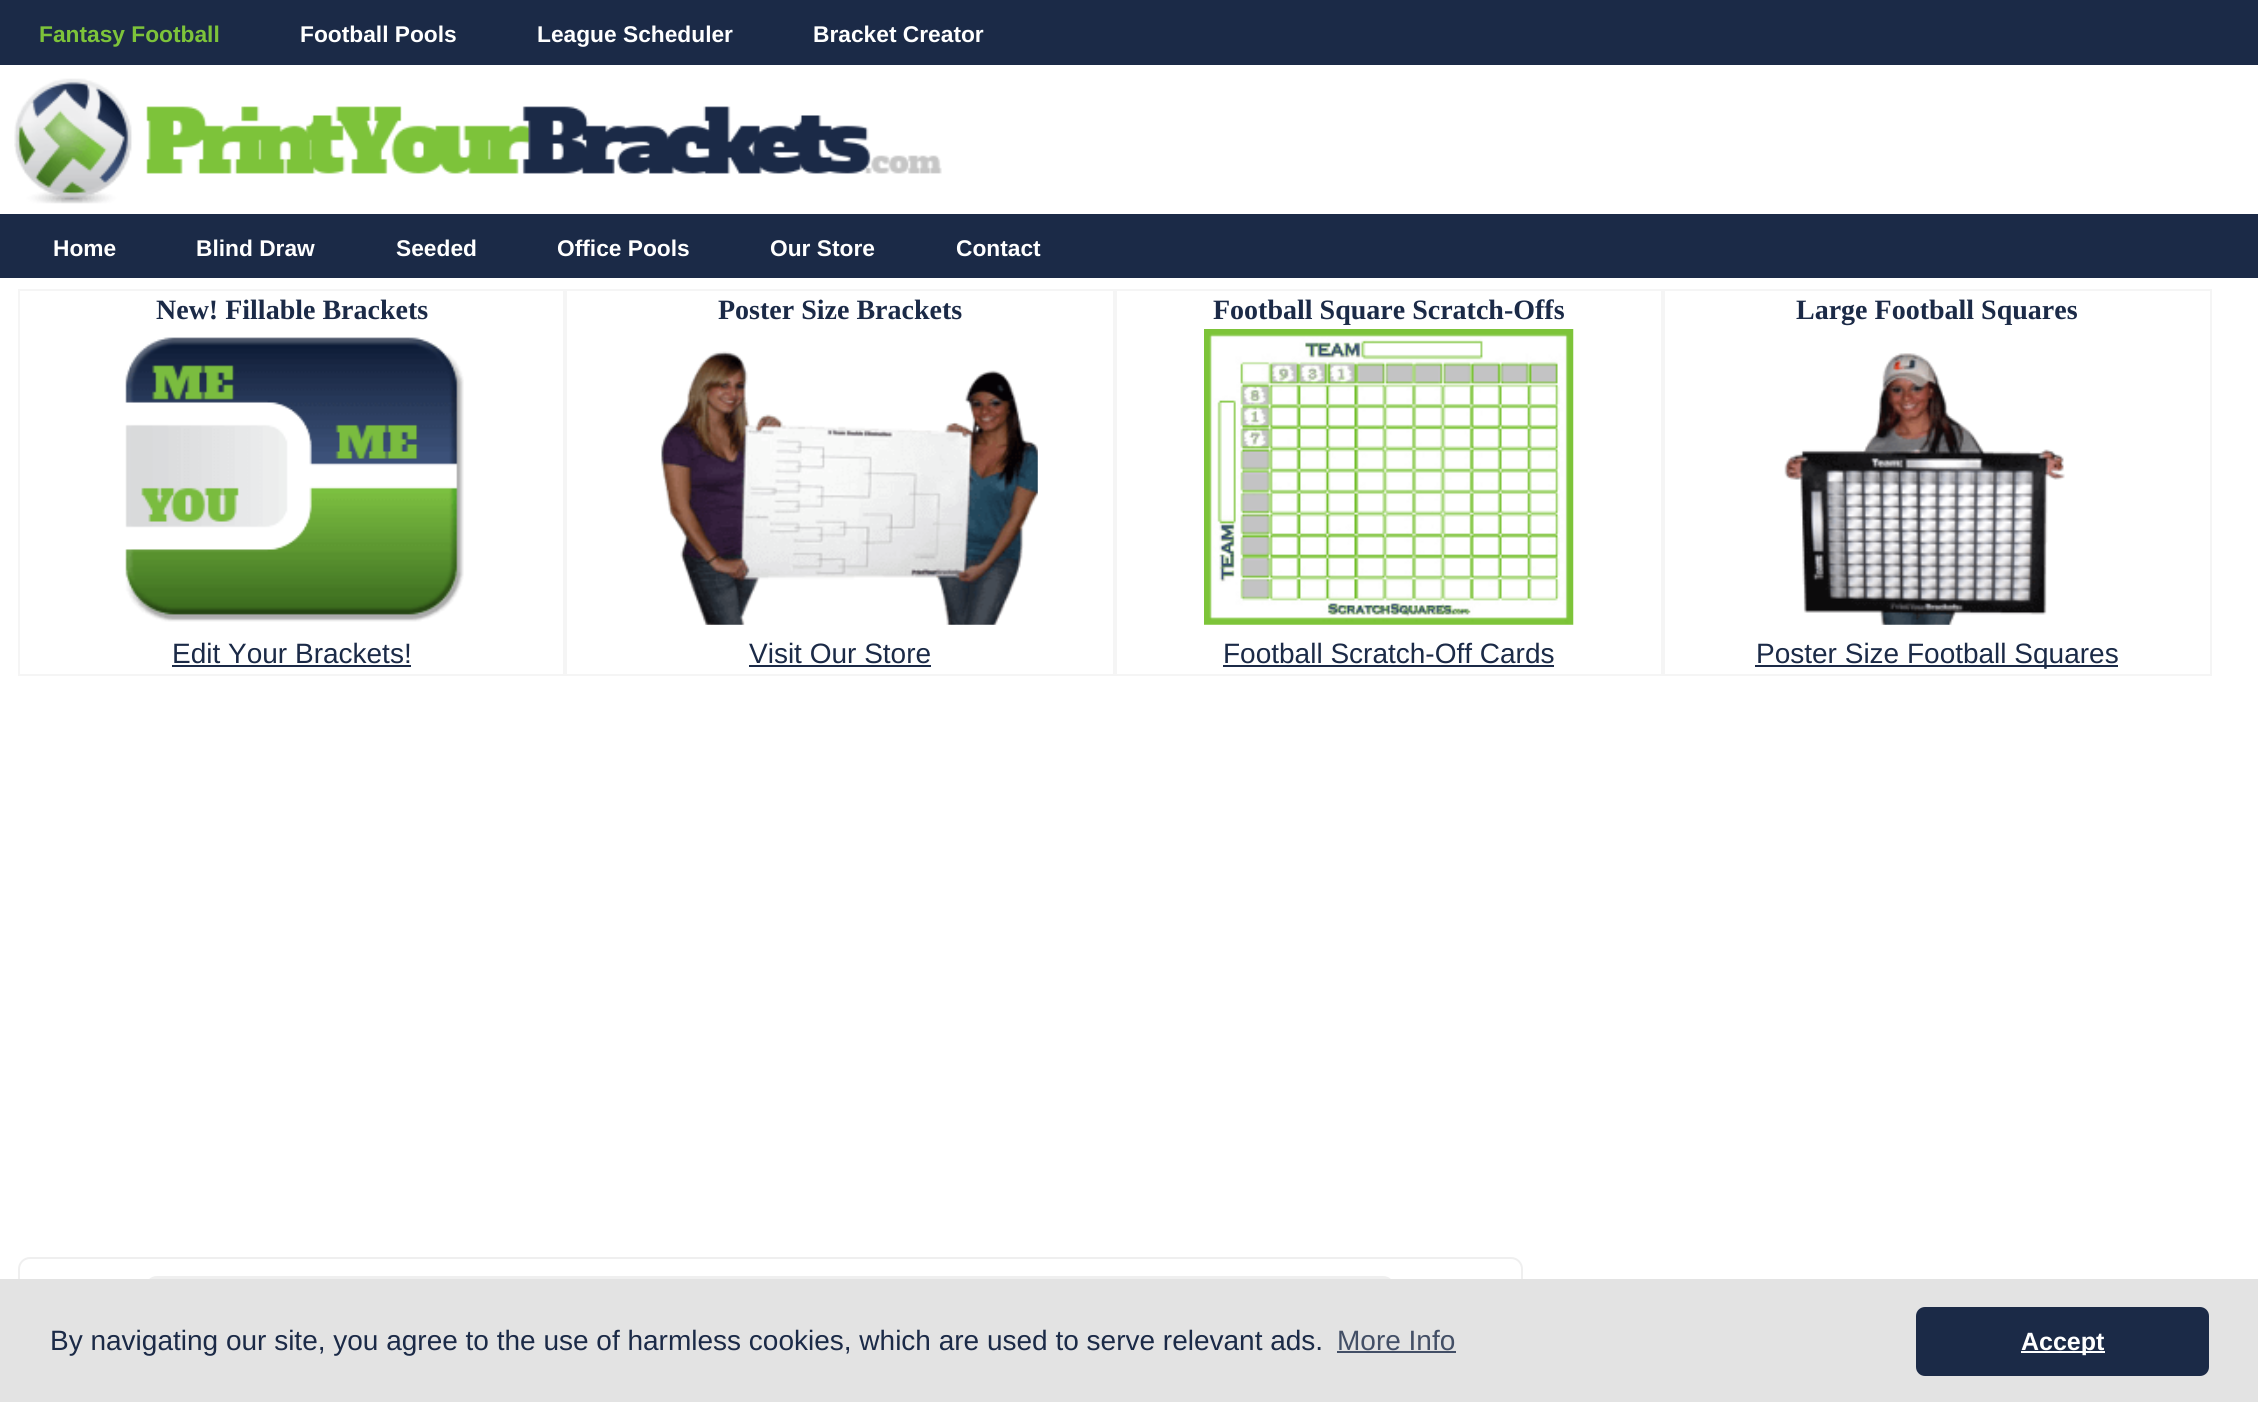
#include <cairo/cairo.h>
#include <math.h>
#include <stddef.h>

static cairo_t *cr;

static void use_color(int r, int g, int b) {
  cairo_set_source_rgb(cr, r / 255.0, g / 255.0, b / 255.0);
}

static void text(double x, double y, const char *s, const char *family, double size, int italic, int bold, int r, int g, int b) {
  cairo_select_font_face(cr, family, italic ? CAIRO_FONT_SLANT_ITALIC : CAIRO_FONT_SLANT_NORMAL,
    bold ? CAIRO_FONT_WEIGHT_BOLD : CAIRO_FONT_WEIGHT_NORMAL);
  cairo_set_font_size(cr, size);
  use_color(r, g, b);
  cairo_move_to(cr, x, y);
  cairo_show_text(cr, s);
}

static void box(double x, double y, double w, double h, int r, int g, int b) {
  use_color(r, g, b);
  cairo_rectangle(cr, x, y, w, h);
  cairo_fill(cr);
}

static void round_rect(double x, double y, double w, double h, double r) {
  cairo_new_sub_path(cr);
  cairo_arc(cr, x + w - r, y + h - r, r, 0, M_PI / 2);
  cairo_arc(cr, x + r, y + h - r, r, M_PI / 2, M_PI);
  cairo_arc(cr, x + r, y + r, r, M_PI, 1.5 * M_PI);
  cairo_arc(cr, x + w - r, y + r, r, 1.5 * M_PI, 2 * M_PI);
  cairo_close_path(cr);
}

static void picture(const char *path, double x, double y, double w, double h) {
  cairo_surface_t *image = cairo_image_surface_create_from_png(path);
  cairo_save(cr);
  cairo_set_source_surface(cr, image, x, y);
  cairo_rectangle(cr, x, y, w, h);
  cairo_fill(cr);
  cairo_restore(cr);
  cairo_surface_destroy(image);
}

static void draw(void) {
  use_color(255, 255, 255);
  cairo_paint(cr);
  box(0, 0, 2258, 65, 27, 42, 71);
  picture("img_01.png", 14, 78, 928, 126);
  box(0, 214, 2258, 64, 27, 42, 71);
  cairo_rectangle(cr, 19, 290, 545, 385);
  use_color(245, 245, 245);
  cairo_stroke(cr);
  picture("img_02.png", 125, 337, 339, 285);
  box(172, 665, 239, 2, 27, 42, 71);
  cairo_rectangle(cr, 566, 290, 548, 385);
  use_color(245, 245, 245);
  cairo_stroke(cr);
  picture("img_03.png", 661, 351, 377, 274);
  box(749, 665, 182, 2, 27, 42, 71);
  cairo_rectangle(cr, 1116, 290, 546, 385);
  use_color(245, 245, 245);
  cairo_stroke(cr);
  picture("img_04.png", 1204, 329, 370, 296);
  box(1223, 665, 331, 2, 27, 42, 71);
  cairo_rectangle(cr, 1664, 290, 547, 385);
  use_color(245, 245, 245);
  cairo_stroke(cr);
  picture("img_05.png", 1784, 353, 281, 272);
  box(1755, 665, 363, 2, 27, 42, 71);
  round_rect(19, 1258, 1503, 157, 11);
  use_color(239, 239, 239);
  cairo_stroke(cr);
  round_rect(149.5, 1280.5, 1241, 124, 7.5);
  cairo_set_line_width(cr, 9);
  cairo_stroke(cr);
  box(0, 1279, 2258, 123, 227, 227, 227);
  box(1337, 1351, 119, 2, 67, 79, 102);
  use_color(27, 42, 71);
  round_rect(1918, 1309, 289, 65, 7);
  cairo_fill_preserve(cr);
  cairo_set_line_width(cr, 4);
  cairo_stroke(cr);
  box(2021, 1351, 84, 2, 255, 255, 255);
  text(39, 42, "Fantasy Football", "Liberation Sans", 22.75, 0, 1, 125, 195, 58);
  text(300, 42, "Football Pools", "Liberation Sans", 22.75, 0, 1, 255, 255, 255);
  text(537, 42, "League Scheduler", "Liberation Sans", 22.75, 0, 1, 255, 255, 255);
  text(813, 42, "Bracket Creator", "Liberation Sans", 22.75, 0, 1, 255, 255, 255);
  text(53, 256, "Home", "Liberation Sans", 22.75, 0, 1, 255, 255, 255);
  text(196, 256, "Blind Draw", "Liberation Sans", 22.75, 0, 1, 255, 255, 255);
  text(396, 256, "Seeded", "Liberation Sans", 22.75, 0, 1, 255, 255, 255);
  text(557, 256, "Office Pools", "Liberation Sans", 22.75, 0, 1, 255, 255, 255);
  text(770, 256, "Our Store", "Liberation Sans", 22.75, 0, 1, 255, 255, 255);
  text(956, 256, "Contact", "Liberation Sans", 22.75, 0, 1, 255, 255, 255);
  text(156, 319, "New! Fillable Brackets", "Liberation Serif", 28, 0, 1, 27, 42, 71);
  text(172, 663, "Edit Your Brackets!", "Liberation Sans", 28, 0, 0, 27, 42, 71);
  text(718, 319, "Poster Size Brackets", "Liberation Serif", 28, 0, 1, 27, 42, 71);
  text(749, 663, "Visit Our Store", "Liberation Sans", 28, 0, 0, 27, 42, 71);
  text(1213, 319, "Football Square Scratch-Offs", "Liberation Serif", 28, 0, 1, 27, 42, 71);
  text(1223, 663, "Football Scratch-Off Cards", "Liberation Sans", 28, 0, 0, 27, 42, 71);
  text(1796, 319, "Large Football Squares", "Liberation Serif", 28, 0, 1, 27, 42, 71);
  text(1756, 663, "Poster Size Football Squares", "Liberation Sans", 28, 0, 0, 27, 42, 71);
  text(50, 1350, "By navigating our site, you agree to the use of harmless cookies, which are used to serve relevant ads.", "Liberation Sans", 28, 0, 0, 27, 42, 71);
  text(1337, 1350, "More Info", "Liberation Sans", 28, 0, 0, 67, 79, 102);
  text(2021, 1350, "Accept", "Liberation Sans", 25, 0, 1, 255, 255, 255);
}

int main(void) {
  cairo_surface_t *surface = cairo_image_surface_create(CAIRO_FORMAT_RGB24, 2258, 1402);
  cr = cairo_create(surface);
  cairo_font_options_t *options = cairo_font_options_create();
  cairo_font_options_set_hint_metrics(options, CAIRO_HINT_METRICS_OFF);
  cairo_font_options_set_hint_style(options, CAIRO_HINT_STYLE_NONE);
  cairo_set_font_options(cr, options);
  cairo_set_miter_limit(cr, 4);
  draw();
  cairo_surface_write_to_png(surface, "out.png");
  cairo_font_options_destroy(options);
  cairo_destroy(cr);
  cairo_surface_destroy(surface);
  return 0;
}
